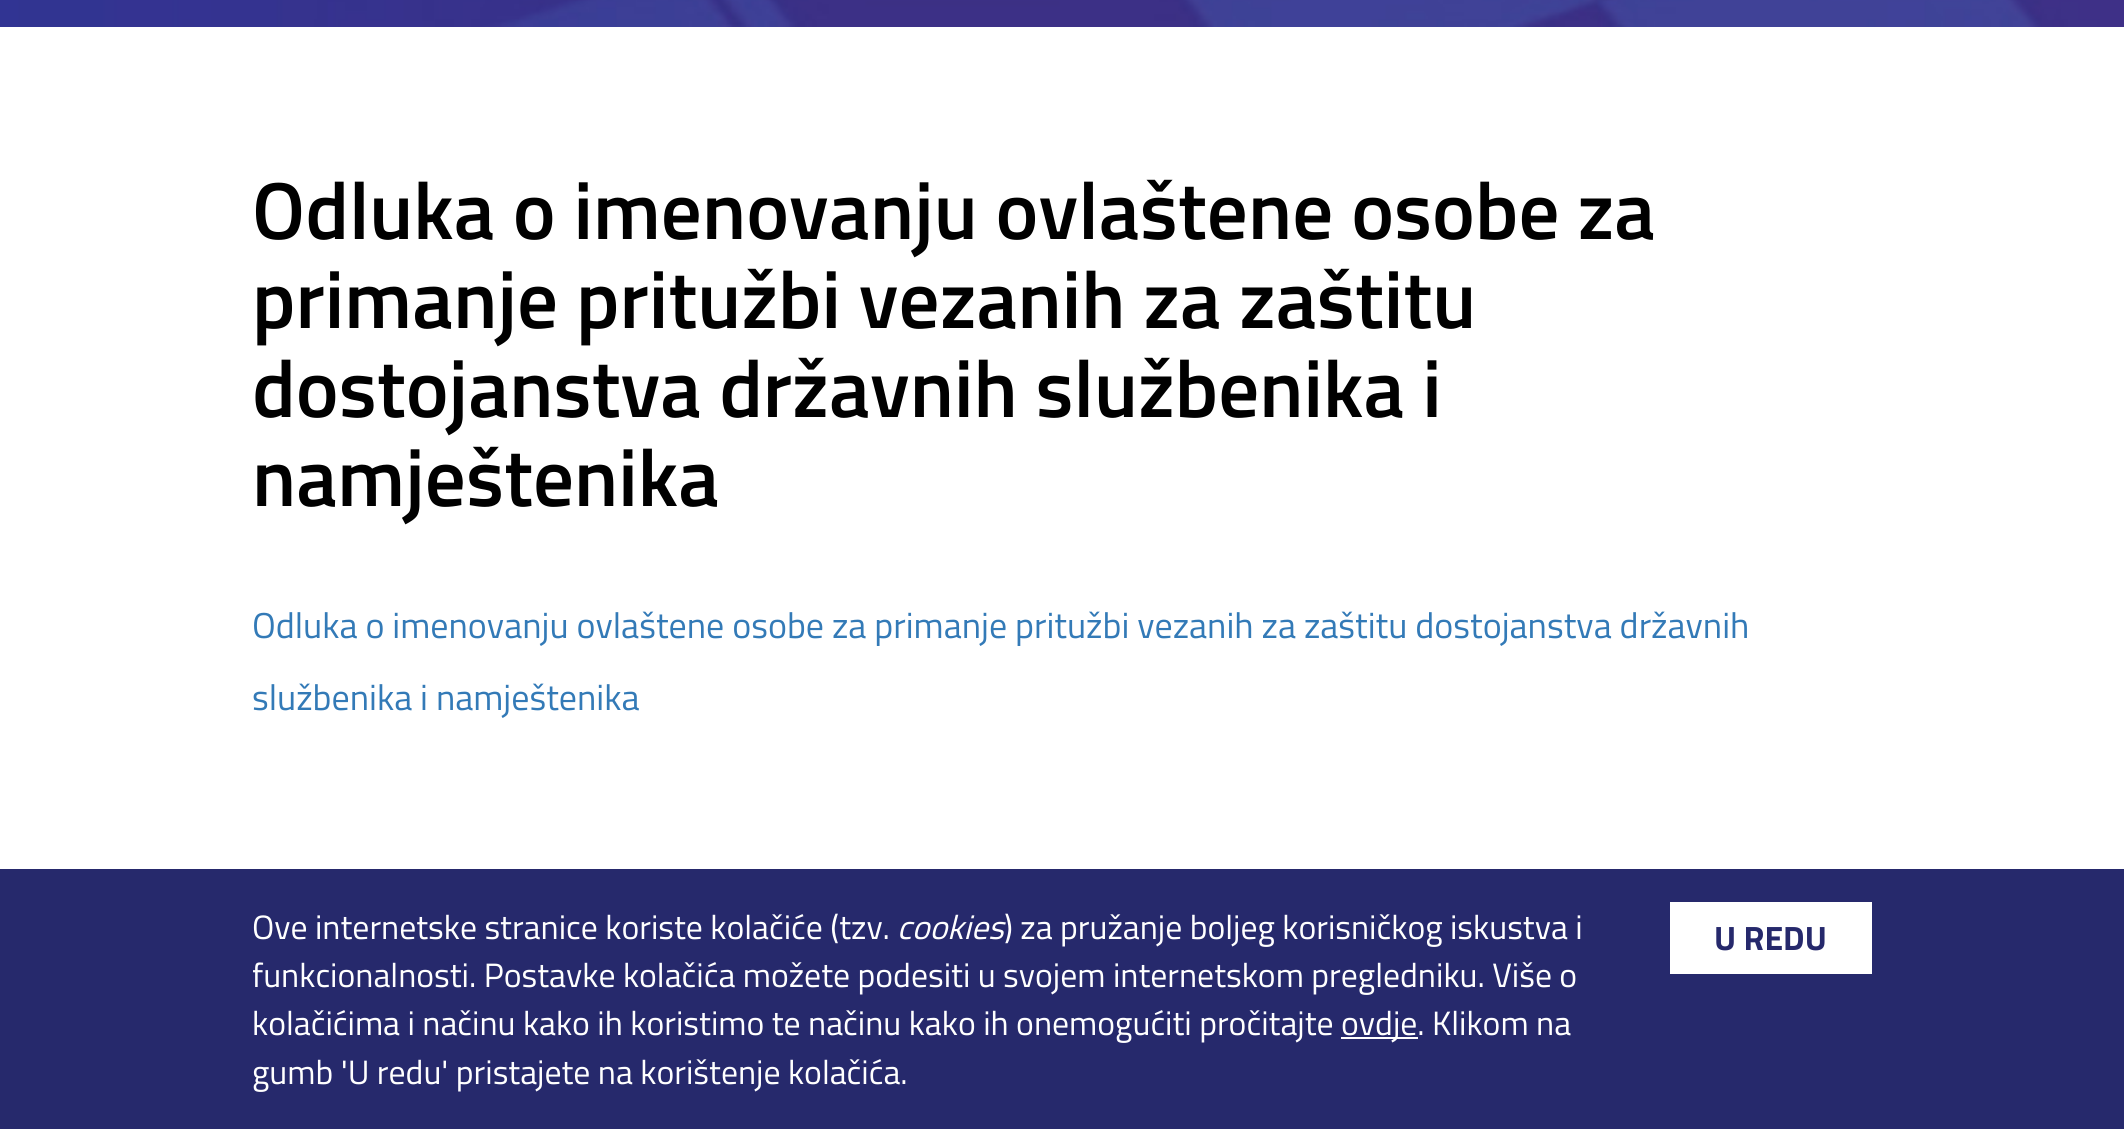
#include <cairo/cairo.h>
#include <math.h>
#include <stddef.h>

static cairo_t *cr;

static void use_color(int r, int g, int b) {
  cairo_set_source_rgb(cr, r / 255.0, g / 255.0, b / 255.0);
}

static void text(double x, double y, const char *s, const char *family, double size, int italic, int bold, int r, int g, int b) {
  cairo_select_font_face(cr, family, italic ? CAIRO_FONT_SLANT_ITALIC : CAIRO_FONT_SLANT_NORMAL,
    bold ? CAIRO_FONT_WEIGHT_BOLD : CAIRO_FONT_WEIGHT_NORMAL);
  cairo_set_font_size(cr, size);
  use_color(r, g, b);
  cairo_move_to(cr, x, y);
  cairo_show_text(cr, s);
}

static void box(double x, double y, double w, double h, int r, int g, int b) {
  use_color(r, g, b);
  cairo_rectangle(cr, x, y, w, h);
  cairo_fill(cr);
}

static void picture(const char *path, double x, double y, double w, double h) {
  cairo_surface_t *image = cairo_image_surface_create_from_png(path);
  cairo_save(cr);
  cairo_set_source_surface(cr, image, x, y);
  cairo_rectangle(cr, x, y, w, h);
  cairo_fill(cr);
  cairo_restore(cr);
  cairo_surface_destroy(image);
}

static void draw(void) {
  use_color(255, 255, 255);
  cairo_paint(cr);
  picture("img_01.png", 0, 0, 2124, 27);
  box(0, 869, 2124, 260, 38, 41, 108);
  box(1341, 1037, 77, 2, 255, 255, 255);
  box(1670, 902, 202, 72, 255, 255, 255);
  text(252, 239, "Odluka o imenovanju ovlaštene osobe za", "Titillium Web SemiBold", 81, 0, 0, 0, 0, 0);
  text(252, 328, "primanje pritužbi vezanih za zaštitu", "Titillium Web SemiBold", 81, 0, 0, 0, 0, 0);
  text(252, 417, "dostojanstva državnih službenika i", "Titillium Web SemiBold", 81, 0, 0, 0, 0, 0);
  text(252, 506, "namještenika", "Titillium Web SemiBold", 81, 0, 0, 0, 0, 0);
  text(252, 638, "Odluka o imenovanju ovlaštene osobe za primanje pritužbi vezanih za zaštitu dostojanstva državnih", "Titillium Web", 36, 0, 0, 51, 122, 183);
  text(252, 710, "službenika i namještenika", "Titillium Web", 36, 0, 0, 51, 122, 183);
  text(252, 939, "Ove internetske stranice koriste kolačiće (tzv.", "Titillium Web", 33.75, 0, 0, 255, 255, 255);
  text(897, 939, "cookies", "Titillium Web", 33.75, 1, 0, 255, 255, 255);
  text(1004, 939, ") za pružanje boljeg korisničkog iskustva i", "Titillium Web", 33.75, 0, 0, 255, 255, 255);
  text(252, 987, "funkcionalnosti. Postavke kolačića možete podesiti u svojem internetskom pregledniku. Više o", "Titillium Web", 33.75, 0, 0, 255, 255, 255);
  text(252, 1035, "kolačićima i načinu kako ih koristimo te načinu kako ih onemogućiti pročitajte", "Titillium Web", 33.75, 0, 0, 255, 255, 255);
  text(1341, 1035, "ovdje. Klikom na", "Titillium Web", 33.75, 0, 0, 255, 255, 255);
  text(252, 1084, "gumb 'U redu' pristajete na korištenje kolačića.", "Titillium Web", 33.75, 0, 0, 255, 255, 255);
  text(1714, 950, "U REDU", "Titillium Web", 33.75, 0, 1, 38, 41, 108);
}

int main(void) {
  cairo_surface_t *surface = cairo_image_surface_create(CAIRO_FORMAT_RGB24, 2124, 1129);
  cr = cairo_create(surface);
  cairo_font_options_t *options = cairo_font_options_create();
  cairo_font_options_set_hint_metrics(options, CAIRO_HINT_METRICS_OFF);
  cairo_font_options_set_hint_style(options, CAIRO_HINT_STYLE_NONE);
  cairo_set_font_options(cr, options);
  cairo_set_miter_limit(cr, 4);
  draw();
  cairo_surface_write_to_png(surface, "out.png");
  cairo_font_options_destroy(options);
  cairo_destroy(cr);
  cairo_surface_destroy(surface);
  return 0;
}
